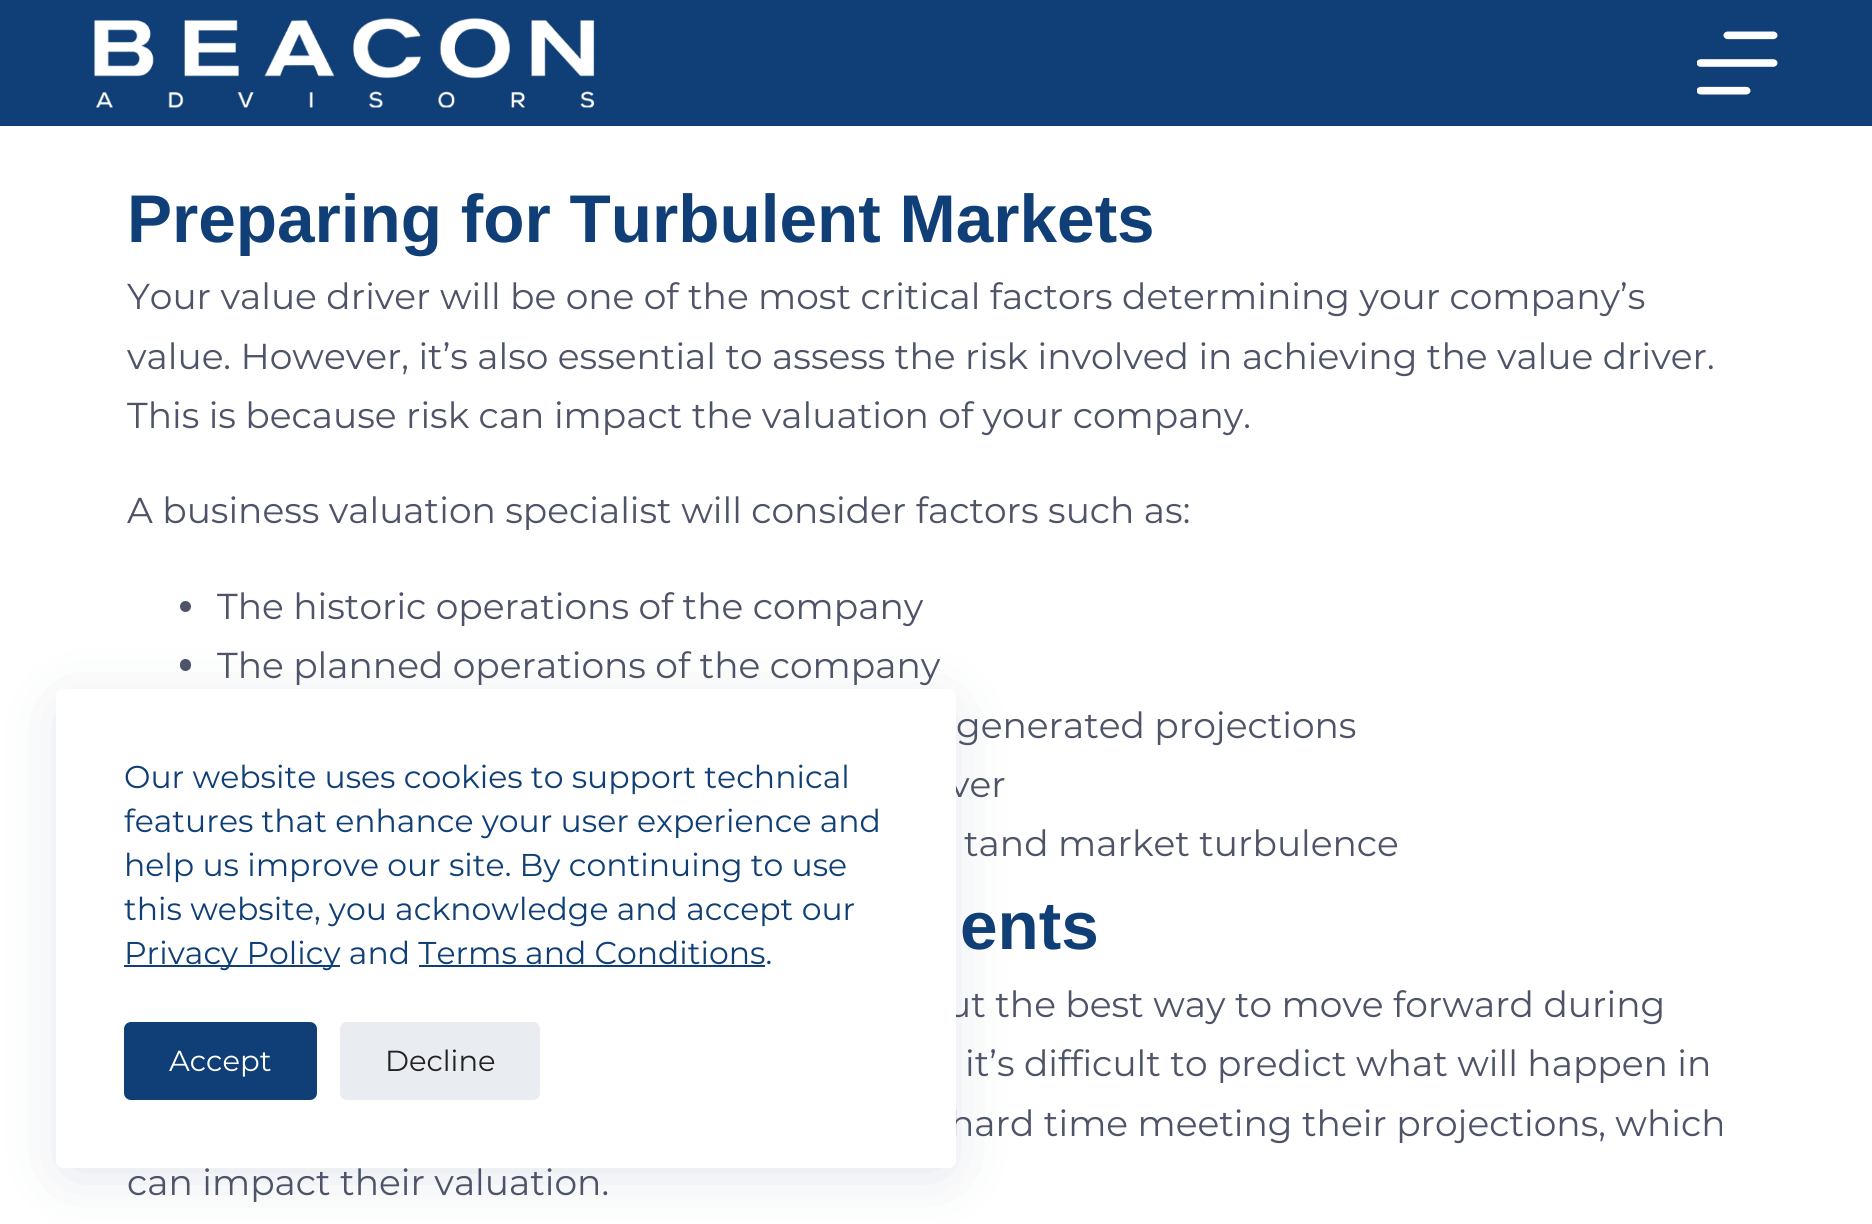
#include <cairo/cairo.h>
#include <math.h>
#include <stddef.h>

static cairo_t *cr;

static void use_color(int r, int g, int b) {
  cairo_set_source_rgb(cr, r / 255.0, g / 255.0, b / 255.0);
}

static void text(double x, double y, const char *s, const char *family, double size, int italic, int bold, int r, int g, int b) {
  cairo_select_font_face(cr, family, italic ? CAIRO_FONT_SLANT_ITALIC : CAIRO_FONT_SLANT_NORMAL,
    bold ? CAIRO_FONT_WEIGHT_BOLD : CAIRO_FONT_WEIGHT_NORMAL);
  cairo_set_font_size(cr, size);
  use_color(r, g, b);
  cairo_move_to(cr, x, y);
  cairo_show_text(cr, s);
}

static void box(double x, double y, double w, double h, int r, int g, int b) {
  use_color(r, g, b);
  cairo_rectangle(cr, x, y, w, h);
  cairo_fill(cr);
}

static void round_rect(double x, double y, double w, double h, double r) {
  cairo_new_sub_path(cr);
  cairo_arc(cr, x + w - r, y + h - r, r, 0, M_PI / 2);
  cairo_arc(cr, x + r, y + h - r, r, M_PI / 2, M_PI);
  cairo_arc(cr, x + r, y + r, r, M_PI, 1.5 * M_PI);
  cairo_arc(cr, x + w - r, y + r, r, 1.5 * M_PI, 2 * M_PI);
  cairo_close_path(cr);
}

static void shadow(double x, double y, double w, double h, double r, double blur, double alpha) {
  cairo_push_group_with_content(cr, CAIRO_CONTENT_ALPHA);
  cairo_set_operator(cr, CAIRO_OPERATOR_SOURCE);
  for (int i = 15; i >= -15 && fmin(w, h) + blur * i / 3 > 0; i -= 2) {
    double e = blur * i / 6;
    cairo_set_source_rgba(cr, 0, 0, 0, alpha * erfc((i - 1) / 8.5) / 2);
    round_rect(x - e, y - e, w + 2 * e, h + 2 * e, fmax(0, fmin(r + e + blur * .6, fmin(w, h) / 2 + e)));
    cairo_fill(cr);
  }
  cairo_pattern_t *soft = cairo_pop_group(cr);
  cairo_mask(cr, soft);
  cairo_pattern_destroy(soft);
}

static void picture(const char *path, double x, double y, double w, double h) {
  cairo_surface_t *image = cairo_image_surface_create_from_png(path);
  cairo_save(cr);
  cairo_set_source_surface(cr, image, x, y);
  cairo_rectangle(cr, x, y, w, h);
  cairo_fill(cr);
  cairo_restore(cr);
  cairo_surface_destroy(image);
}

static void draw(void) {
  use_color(255, 255, 255);
  cairo_paint(cr);
  box(0, 0, 1872, 126, 15, 63, 118);
  picture("img_01.png", 94, 18, 501, 90);
  picture("img_02.png", 1697, 31, 81, 64);
  use_color(78, 84, 104);
  cairo_arc(cr, 185.5, 606.5, 5.5, 0, 2 * M_PI);
  cairo_fill(cr);
  round_rect(180, 659, 11, 12, 5.5);
  cairo_fill(cr);
  use_color(34, 56, 101);
  shadow(68, 711, 877, 457, 0, 34, 0.15);
  text(127, 242, "Preparing for Turbulent Markets", "Liberation Sans", 67.5, 0, 1, 15, 63, 118);
  text(127, 309, "Your value driver will be one of the most critical factors determining your company’s", "Montserrat", 36, 0, 0, 78, 84, 104);
  text(127, 369, "value. However, it’s also essential to assess the risk involved in achieving the value driver.", "Montserrat", 36, 0, 0, 78, 84, 104);
  text(127, 428, "This is because risk can impact the valuation of your company.", "Montserrat", 36, 0, 0, 78, 84, 104);
  text(127, 523, "A business valuation specialist will consider factors such as:", "Montserrat", 36, 0, 0, 78, 84, 104);
  text(217, 619, "The historic operations of the company", "Montserrat", 36, 0, 0, 78, 84, 104);
  text(217, 678, "The planned operations of the company", "Montserrat", 36, 0, 0, 78, 84, 104);
  text(956, 738, "generated projections", "Montserrat", 36, 0, 0, 78, 84, 104);
  text(950, 797, "ver", "Montserrat", 36, 0, 0, 78, 84, 104);
  text(964, 856, "tand market turbulence", "Montserrat", 36, 0, 0, 78, 84, 104);
  text(960, 949, "ents", "Liberation Sans", 67.5, 0, 1, 15, 63, 118);
  text(947, 1017, "ut the best way to move forward during", "Montserrat", 36, 0, 0, 78, 84, 104);
  text(965, 1076, "it’s difficult to predict what will happen in", "Montserrat", 36, 0, 0, 78, 84, 104);
  text(950, 1136, "hard time meeting their projections, which", "Montserrat", 36, 0, 0, 78, 84, 104);
  text(127, 1195, "can impact their valuation.", "Montserrat", 36, 0, 0, 78, 84, 104);
  use_color(255, 255, 255);
  round_rect(56, 689, 900, 479, 7);
  cairo_fill(cr);
  text(124, 788, "Our website uses cookies to support technical", "Montserrat", 31.5, 0, 0, 15, 63, 118);
  text(124, 832, "features that enhance your user experience and", "Montserrat", 31.5, 0, 0, 15, 63, 118);
  text(124, 876, "help us improve our site. By continuing to use", "Montserrat", 31.5, 0, 0, 15, 63, 118);
  text(124, 920, "this website, you acknowledge and accept our", "Montserrat", 31.5, 0, 0, 15, 63, 118);
  box(124, 965, 216, 2, 15, 63, 118);
  text(124, 964, "Privacy Policy and Terms and Conditions.", "Montserrat", 31.5, 0, 0, 15, 63, 118);
  box(419, 965, 346, 2, 15, 63, 118);
  round_rect(124, 1022, 193, 78, 7);
  cairo_fill(cr);
  text(169, 1071, "Accept", "Montserrat", 29, 0, 0, 255, 255, 255);
  use_color(233, 236, 241);
  round_rect(340, 1022, 200, 78, 7);
  cairo_fill(cr);
  text(385, 1071, "Decline", "Montserrat", 29, 0, 0, 34, 34, 34);
}

int main(void) {
  cairo_surface_t *surface = cairo_image_surface_create(CAIRO_FORMAT_RGB24, 1872, 1224);
  cr = cairo_create(surface);
  cairo_font_options_t *options = cairo_font_options_create();
  cairo_font_options_set_hint_metrics(options, CAIRO_HINT_METRICS_OFF);
  cairo_font_options_set_hint_style(options, CAIRO_HINT_STYLE_NONE);
  cairo_set_font_options(cr, options);
  cairo_set_miter_limit(cr, 4);
  draw();
  cairo_surface_write_to_png(surface, "out.png");
  cairo_font_options_destroy(options);
  cairo_destroy(cr);
  cairo_surface_destroy(surface);
  return 0;
}
